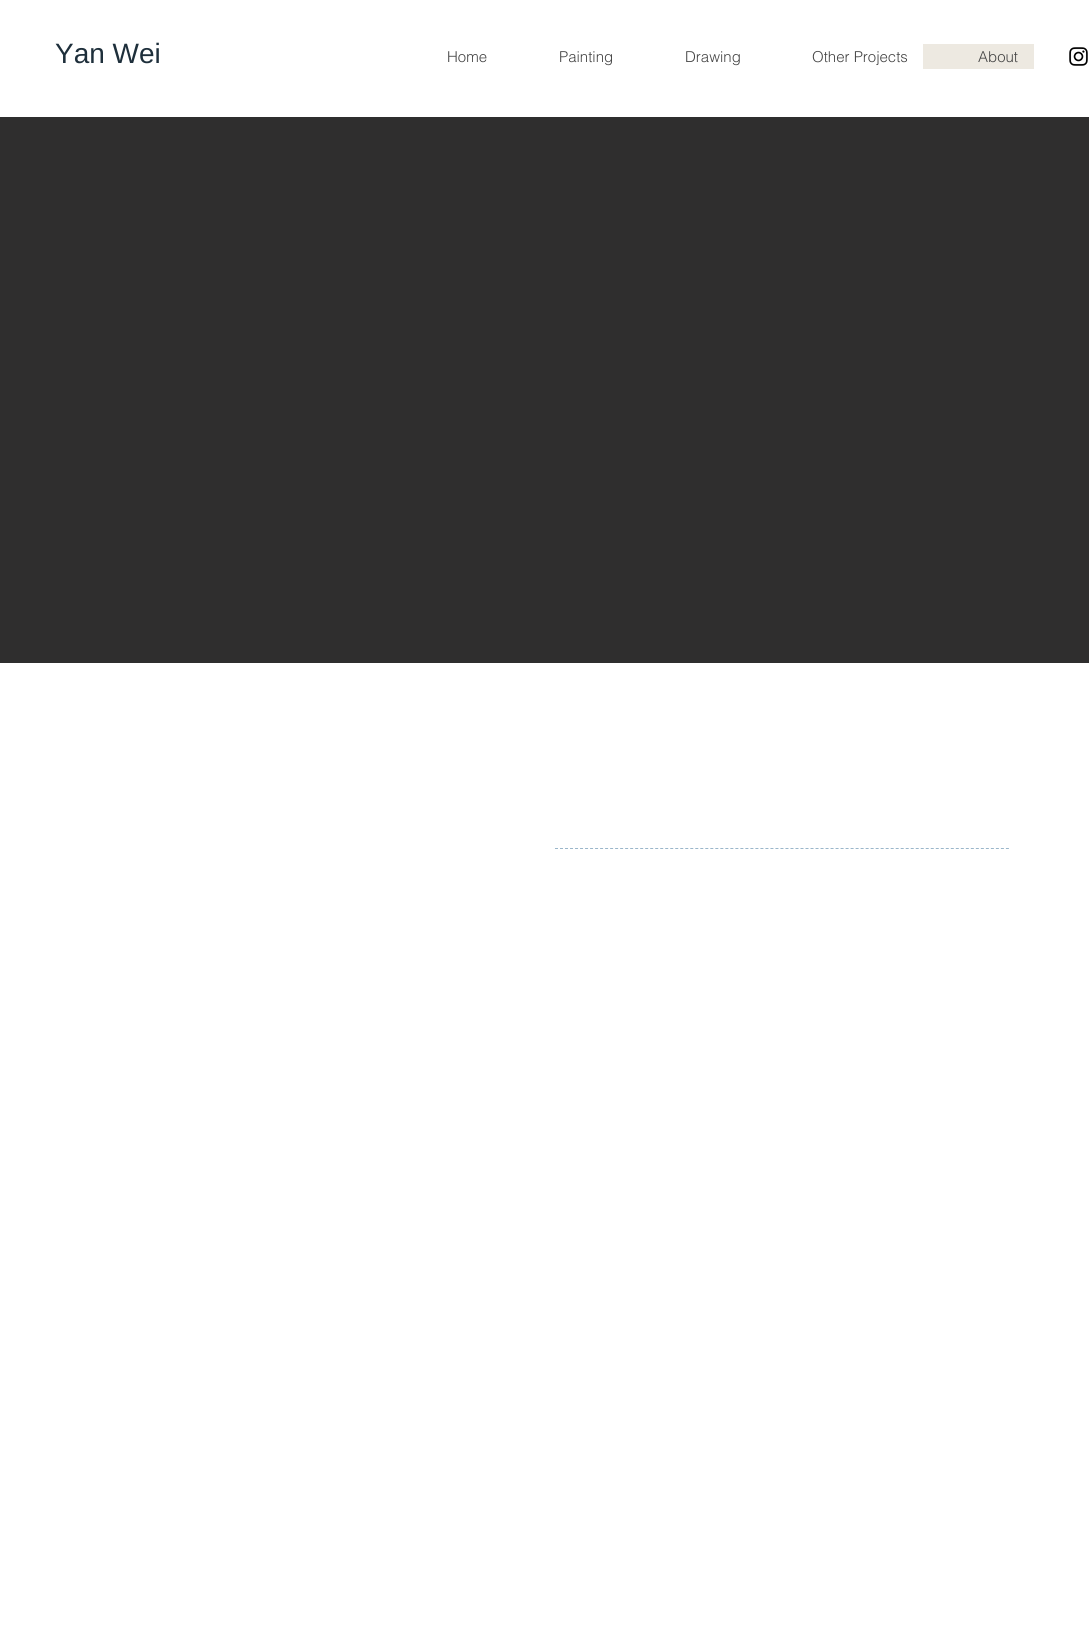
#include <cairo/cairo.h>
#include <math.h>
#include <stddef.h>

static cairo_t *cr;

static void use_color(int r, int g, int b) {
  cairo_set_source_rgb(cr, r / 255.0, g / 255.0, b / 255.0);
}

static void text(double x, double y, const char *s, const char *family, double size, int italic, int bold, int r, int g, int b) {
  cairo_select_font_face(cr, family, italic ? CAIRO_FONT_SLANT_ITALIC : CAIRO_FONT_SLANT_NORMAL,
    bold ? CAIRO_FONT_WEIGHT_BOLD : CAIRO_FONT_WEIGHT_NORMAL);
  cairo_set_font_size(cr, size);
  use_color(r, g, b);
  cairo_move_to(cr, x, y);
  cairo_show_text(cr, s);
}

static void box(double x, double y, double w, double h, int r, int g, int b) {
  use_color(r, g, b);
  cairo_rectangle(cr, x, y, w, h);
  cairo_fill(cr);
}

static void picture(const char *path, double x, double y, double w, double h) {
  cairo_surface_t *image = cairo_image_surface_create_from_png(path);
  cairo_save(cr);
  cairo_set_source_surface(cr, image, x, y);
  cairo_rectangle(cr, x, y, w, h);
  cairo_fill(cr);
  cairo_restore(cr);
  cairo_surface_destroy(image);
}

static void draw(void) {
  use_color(255, 255, 255);
  cairo_paint(cr);
  box(923, 44, 111, 25, 237, 233, 225);
  picture("img_01.png", 1069, 47, 19, 19);
  box(0, 117, 1089, 546, 47, 46, 46);
  cairo_new_path(cr);
  cairo_move_to(cr, 555, 848.5);
  cairo_line_to(cr, 1009, 848.5);
  use_color(154, 182, 202);
  cairo_set_line_width(cr, 1);
  cairo_set_dash(cr, (double[]){3, 2.01}, 2, 0);
  cairo_stroke(cr);
  text(55, 63, "Yan Wei", "Liberation Sans", 28, 0, 0, 30, 47, 59);
  text(447, 62, "Home", "helvetica Light", 15, 0, 0, 68, 68, 68);
  text(559, 62, "Painting", "helvetica Light", 15, 0, 0, 68, 68, 68);
  text(685, 62, "Drawing", "helvetica Light", 15, 0, 0, 68, 68, 68);
  text(812, 62, "Other Projects", "helvetica Light", 15, 0, 0, 68, 68, 68);
  text(978, 62, "About", "helvetica Light", 15, 0, 0, 68, 68, 68);
}

int main(void) {
  cairo_surface_t *surface = cairo_image_surface_create(CAIRO_FORMAT_RGB24, 1089, 1648);
  cr = cairo_create(surface);
  cairo_font_options_t *options = cairo_font_options_create();
  cairo_font_options_set_hint_metrics(options, CAIRO_HINT_METRICS_OFF);
  cairo_font_options_set_hint_style(options, CAIRO_HINT_STYLE_NONE);
  cairo_set_font_options(cr, options);
  cairo_set_miter_limit(cr, 4);
  draw();
  cairo_surface_write_to_png(surface, "out.png");
  cairo_font_options_destroy(options);
  cairo_destroy(cr);
  cairo_surface_destroy(surface);
  return 0;
}
